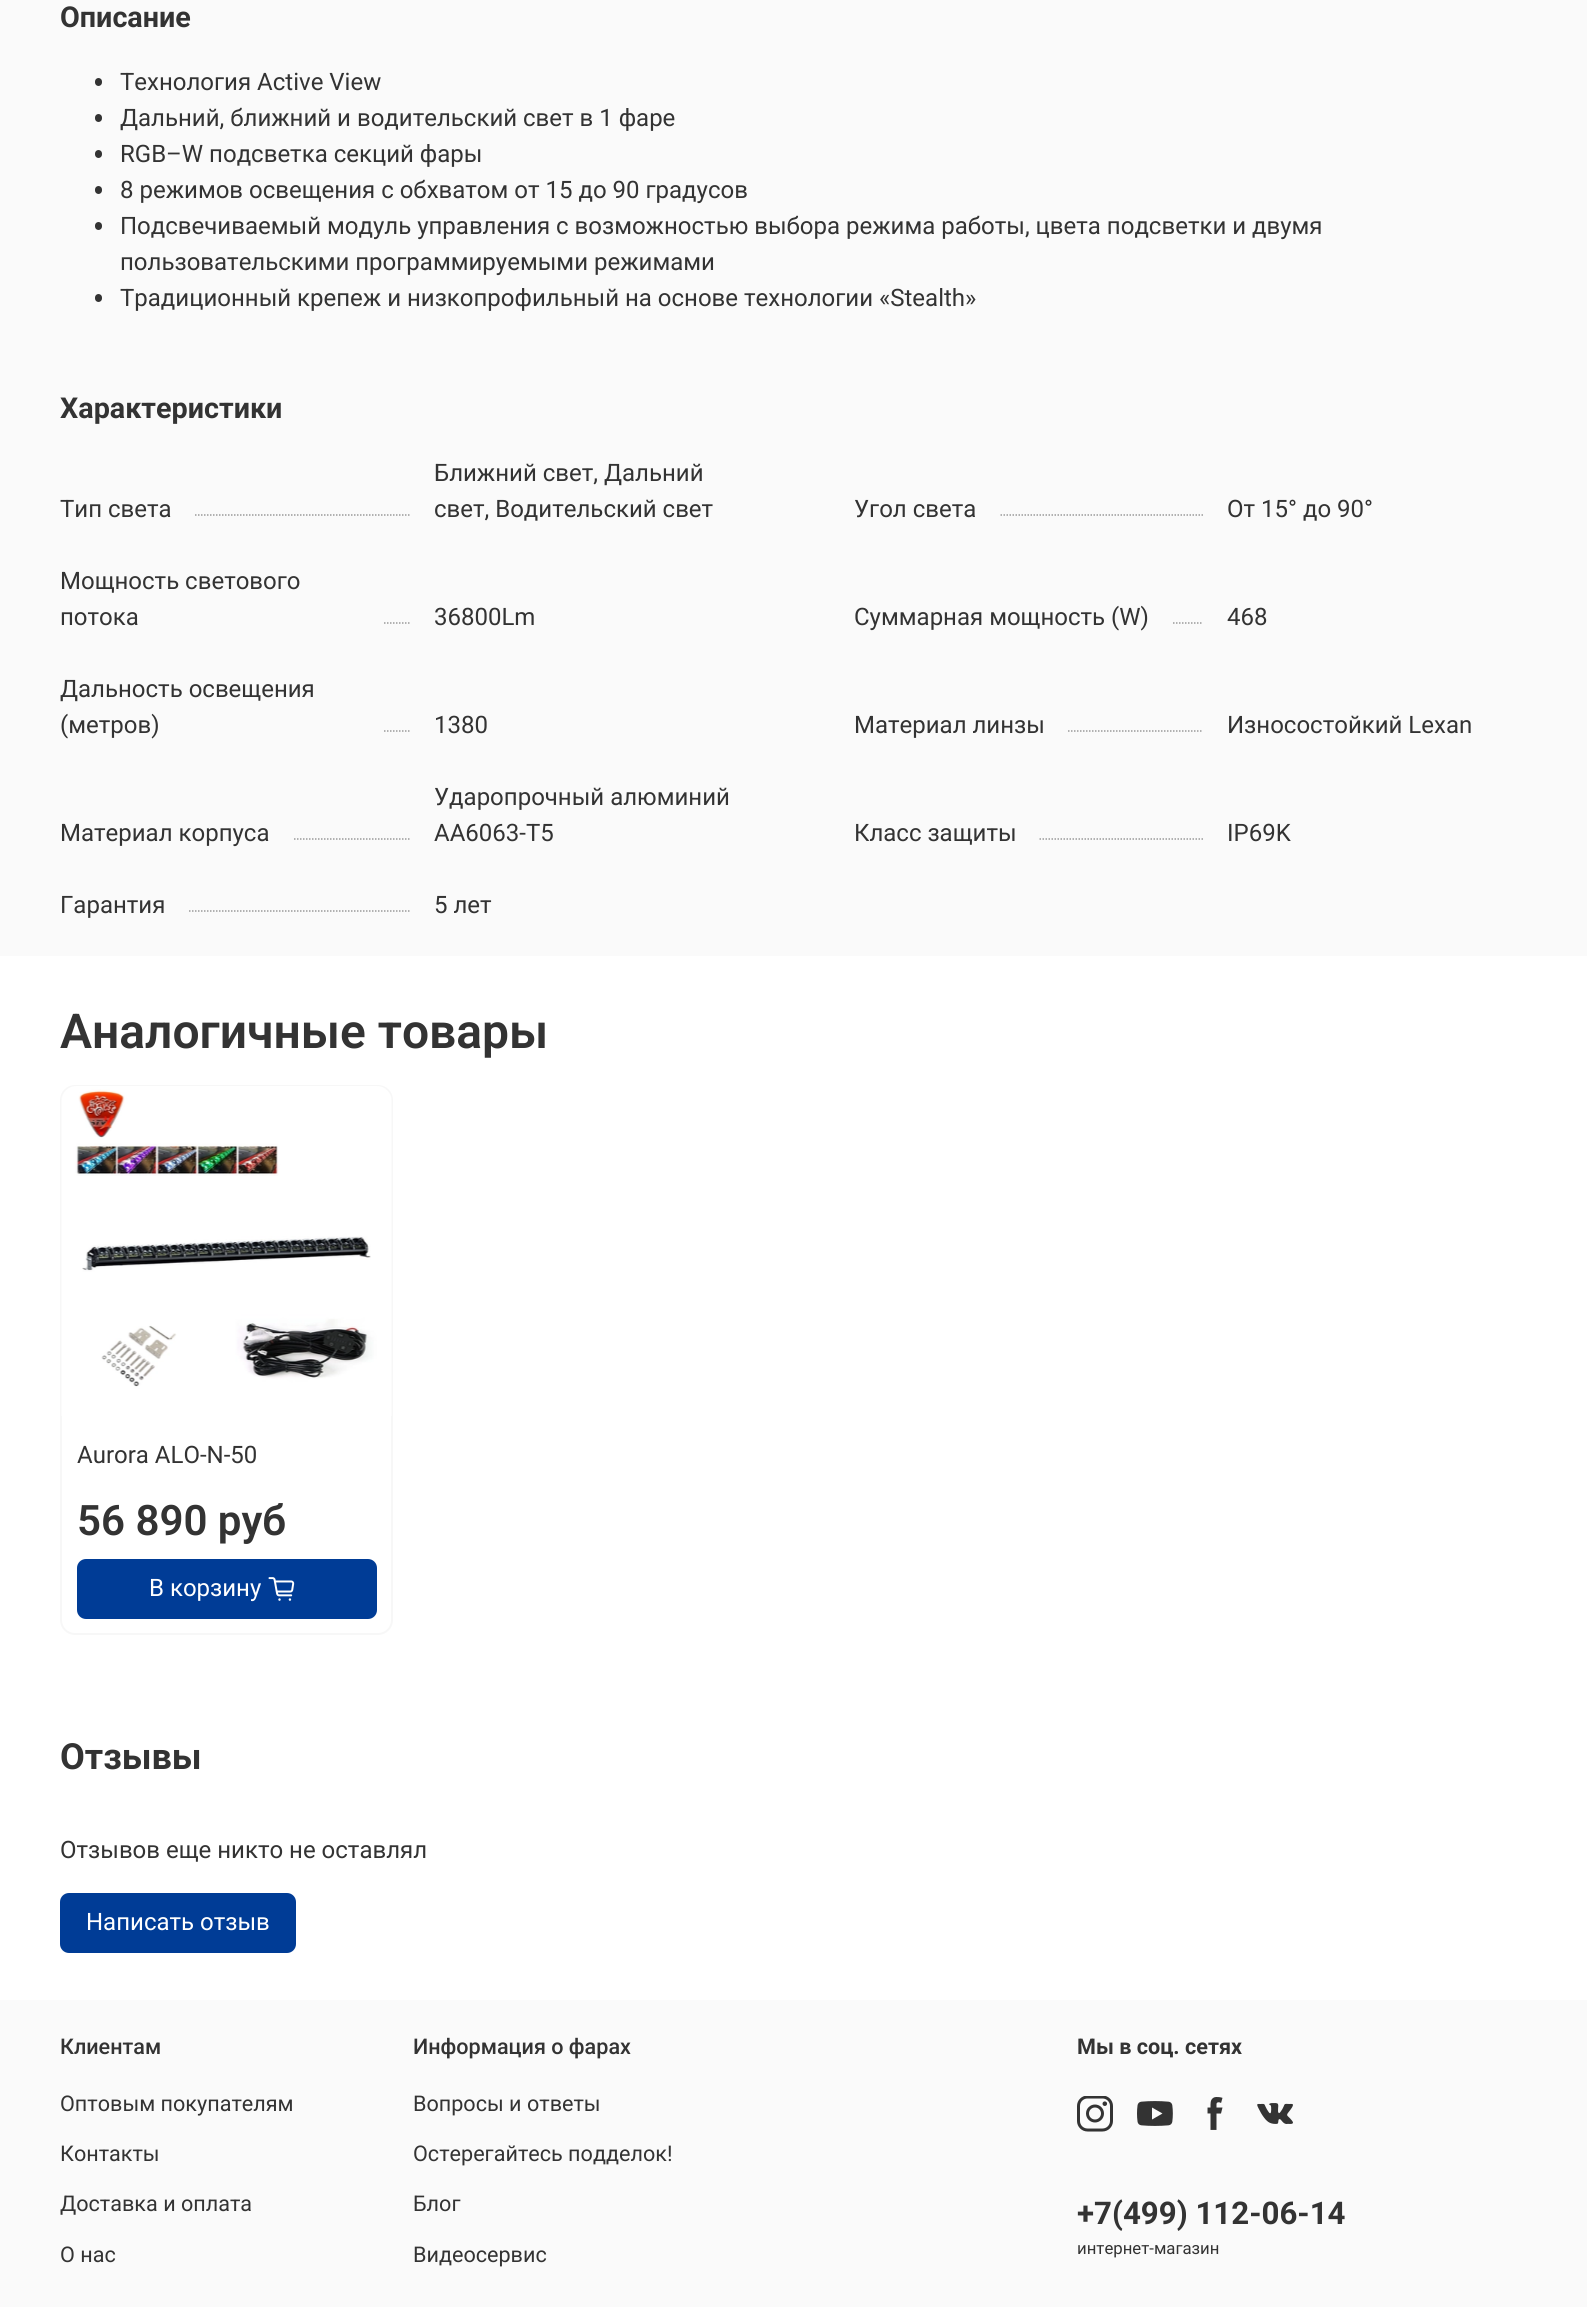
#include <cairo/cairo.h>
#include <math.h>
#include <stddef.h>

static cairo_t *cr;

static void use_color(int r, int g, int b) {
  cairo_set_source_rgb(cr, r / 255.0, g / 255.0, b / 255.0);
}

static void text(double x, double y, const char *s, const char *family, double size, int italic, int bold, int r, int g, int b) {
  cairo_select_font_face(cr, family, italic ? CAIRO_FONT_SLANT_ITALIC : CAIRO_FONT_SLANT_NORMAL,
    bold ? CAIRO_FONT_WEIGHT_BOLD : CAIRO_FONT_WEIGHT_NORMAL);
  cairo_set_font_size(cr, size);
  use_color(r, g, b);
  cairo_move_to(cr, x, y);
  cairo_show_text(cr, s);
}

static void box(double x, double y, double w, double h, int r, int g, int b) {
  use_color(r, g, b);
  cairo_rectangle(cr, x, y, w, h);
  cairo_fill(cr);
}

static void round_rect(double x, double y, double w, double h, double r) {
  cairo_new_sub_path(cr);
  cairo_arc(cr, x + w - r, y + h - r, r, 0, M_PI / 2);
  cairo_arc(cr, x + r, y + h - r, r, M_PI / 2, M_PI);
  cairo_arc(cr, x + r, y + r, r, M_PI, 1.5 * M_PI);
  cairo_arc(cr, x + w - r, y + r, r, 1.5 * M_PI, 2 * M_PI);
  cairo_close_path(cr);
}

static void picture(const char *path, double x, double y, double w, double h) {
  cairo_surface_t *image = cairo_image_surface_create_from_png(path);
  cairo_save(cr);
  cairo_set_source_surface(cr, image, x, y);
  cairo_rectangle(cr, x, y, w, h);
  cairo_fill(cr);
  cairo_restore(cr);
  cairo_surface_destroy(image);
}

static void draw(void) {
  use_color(255, 255, 255);
  cairo_paint(cr);
  box(0, 0, 1587, 956, 250, 250, 250);
  use_color(51, 51, 51);
  round_rect(95, 78, 7, 8, 3.5);
  cairo_fill(cr);
  round_rect(95, 114, 7, 8, 3.5);
  cairo_fill(cr);
  round_rect(95, 150, 7, 8, 3.5);
  cairo_fill(cr);
  round_rect(95, 186, 7, 8, 3.5);
  cairo_fill(cr);
  round_rect(95, 222, 7, 8, 3.5);
  cairo_fill(cr);
  round_rect(95, 294, 7, 8, 3.5);
  cairo_fill(cr);
  cairo_new_path(cr);
  cairo_move_to(cr, 195, 515);
  cairo_line_to(cr, 409.5, 515);
  use_color(153, 153, 153);
  cairo_set_line_width(cr, 1.5);
  cairo_set_dash(cr, (double[]){1.5, 1.5}, 2, 0);
  cairo_stroke(cr);
  cairo_new_path(cr);
  cairo_move_to(cr, 1000.5, 515);
  cairo_line_to(cr, 1203, 515);
  cairo_stroke(cr);
  cairo_new_path(cr);
  cairo_move_to(cr, 384, 623);
  cairo_line_to(cr, 409.5, 623);
  cairo_stroke(cr);
  cairo_new_path(cr);
  cairo_move_to(cr, 1173, 623);
  cairo_line_to(cr, 1203, 623);
  cairo_stroke(cr);
  cairo_new_path(cr);
  cairo_move_to(cr, 384, 731);
  cairo_line_to(cr, 409.5, 731);
  cairo_stroke(cr);
  cairo_new_path(cr);
  cairo_move_to(cr, 1068, 731);
  cairo_line_to(cr, 1203, 731);
  cairo_stroke(cr);
  cairo_new_path(cr);
  cairo_move_to(cr, 294, 839);
  cairo_line_to(cr, 409.5, 839);
  cairo_stroke(cr);
  cairo_new_path(cr);
  cairo_move_to(cr, 1039.5, 839);
  cairo_line_to(cr, 1203, 839);
  cairo_stroke(cr);
  cairo_new_path(cr);
  cairo_move_to(cr, 189, 911);
  cairo_line_to(cr, 409.5, 911);
  cairo_stroke(cr);
  round_rect(61, 1086, 331, 548, 14);
  use_color(247, 247, 247);
  cairo_set_line_width(cr, 2);
  cairo_set_dash(cr, NULL, 0, 0);
  cairo_stroke(cr);
  picture("img_01.png", 61, 1086, 331, 330);
  use_color(0, 60, 150);
  round_rect(77, 1559, 300, 60, 9);
  cairo_fill(cr);
  picture("img_02.png", 268, 1577, 27, 24);
  round_rect(60, 1893, 236, 60, 9);
  cairo_fill(cr);
  box(0, 2000, 1587, 307, 250, 250, 250);
  picture("img_03.png", 1077, 2096, 36, 36);
  picture("img_04.png", 1137, 2101, 36, 25);
  picture("img_05.png", 1207, 2097, 16, 33);
  picture("img_06.png", 1257, 2103, 36, 21);
  text(60, 27, "Описание", "Roboto", 28.75, 0, 1, 51, 51, 51);
  text(120, 90, "Технология Active View", "Roboto", 24, 0, 0, 51, 51, 51);
  text(120, 126, "Дальний, ближний и водительский свет в 1 фаре", "Roboto", 24, 0, 0, 51, 51, 51);
  text(120, 162, "RGB–W подсветка секций фары", "Roboto", 24, 0, 0, 51, 51, 51);
  text(120, 198, "8 режимов освещения с обхватом от 15 до 90 градусов", "Roboto", 24, 0, 0, 51, 51, 51);
  text(120, 234, "Подсвечиваемый модуль управления с возможностью выбора режима работы, цвета подсветки и двумя", "Roboto", 24, 0, 0, 51, 51, 51);
  text(120, 270, "пользовательскими программируемыми режимами", "Roboto", 24, 0, 0, 51, 51, 51);
  text(120, 306, "Традиционный крепеж и низкопрофильный на основе технологии «Stealth»", "Roboto", 24, 0, 0, 51, 51, 51);
  text(60, 418, "Характеристики", "Roboto", 28.75, 0, 1, 51, 51, 51);
  text(60, 517, "Тип света", "Roboto", 24, 0, 0, 51, 51, 51);
  text(434, 481, "Ближний свет, Дальний", "Roboto", 24, 0, 0, 51, 51, 51);
  text(434, 517, "свет, Водительский свет", "Roboto", 24, 0, 0, 51, 51, 51);
  text(854, 517, "Угол света", "Roboto", 24, 0, 0, 51, 51, 51);
  text(1227, 517, "От 15° до 90°", "Roboto", 24, 0, 0, 51, 51, 51);
  text(60, 589, "Мощность светового", "Roboto", 24, 0, 0, 51, 51, 51);
  text(60, 625, "потока", "Roboto", 24, 0, 0, 51, 51, 51);
  text(434, 625, "36800Lm", "Roboto", 24, 0, 0, 51, 51, 51);
  text(854, 625, "Суммарная мощность (W)", "Roboto", 24, 0, 0, 51, 51, 51);
  text(1227, 625, "468", "Roboto", 24, 0, 0, 51, 51, 51);
  text(60, 697, "Дальность освещения", "Roboto", 24, 0, 0, 51, 51, 51);
  text(60, 733, "(метров)", "Roboto", 24, 0, 0, 51, 51, 51);
  text(434, 733, "1380", "Roboto", 24, 0, 0, 51, 51, 51);
  text(854, 733, "Материал линзы", "Roboto", 24, 0, 0, 51, 51, 51);
  text(1227, 733, "Износостойкий Lexan", "Roboto", 24, 0, 0, 51, 51, 51);
  text(60, 841, "Материал корпуса", "Roboto", 24, 0, 0, 51, 51, 51);
  text(434, 805, "Ударопрочный алюминий", "Roboto", 24, 0, 0, 51, 51, 51);
  text(434, 841, "AA6063-T5", "Roboto", 24, 0, 0, 51, 51, 51);
  text(854, 841, "Класс защиты", "Roboto", 24, 0, 0, 51, 51, 51);
  text(1227, 841, "IP69K", "Roboto", 24, 0, 0, 51, 51, 51);
  text(60, 913, "Гарантия", "Roboto", 24, 0, 0, 51, 51, 51);
  text(434, 913, "5 лет", "Roboto", 24, 0, 0, 51, 51, 51);
  text(60, 1048, "Аналогичные товары", "Roboto SemiBold", 48, 0, 0, 51, 51, 51);
  text(77, 1463, "Aurora ALO-N-50", "Roboto", 24, 0, 0, 51, 51, 51);
  text(77, 1535, "56 890 руб", "Roboto SemiBold", 42, 0, 0, 51, 51, 51);
  text(149, 1596, "В корзину", "Roboto", 24, 0, 0, 255, 255, 255);
  text(60, 1769, "Отзывы", "Roboto", 36, 0, 1, 51, 51, 51);
  text(60, 1858, "Отзывов еще никто не оставлял", "Roboto", 24, 0, 0, 51, 51, 51);
  text(86, 1930, "Написать отзыв", "Roboto", 24, 0, 0, 255, 255, 255);
  text(60, 2054, "Клиентам", "Roboto Medium", 21.6, 0, 0, 51, 51, 51);
  text(60, 2111, "Оптовым покупателям", "Roboto", 21.6, 0, 0, 51, 51, 51);
  text(60, 2161, "Контакты", "Roboto", 21.6, 0, 0, 51, 51, 51);
  text(60, 2211, "Доставка и оплата", "Roboto", 21.6, 0, 0, 51, 51, 51);
  text(60, 2262, "О нас", "Roboto", 21.6, 0, 0, 51, 51, 51);
  text(413, 2054, "Информация о фарах", "Roboto Medium", 21.6, 0, 0, 51, 51, 51);
  text(413, 2111, "Вопросы и ответы", "Roboto", 21.6, 0, 0, 51, 51, 51);
  text(413, 2161, "Остерегайтесь подделок!", "Roboto", 21.6, 0, 0, 51, 51, 51);
  text(413, 2211, "Блог", "Roboto", 21.6, 0, 0, 51, 51, 51);
  text(413, 2262, "Видеосервис", "Roboto", 21.6, 0, 0, 51, 51, 51);
  text(1077, 2054, "Мы в соц. сетях", "Roboto", 21.6, 0, 1, 51, 51, 51);
  text(1077, 2224, "+7(499) 112-06-14", "Roboto", 31.25, 0, 1, 51, 51, 51);
  text(1077, 2254, "интернет-магазин", "Roboto", 16.75, 0, 0, 51, 51, 51);
}

int main(void) {
  cairo_surface_t *surface = cairo_image_surface_create(CAIRO_FORMAT_RGB24, 1587, 2307);
  cr = cairo_create(surface);
  cairo_font_options_t *options = cairo_font_options_create();
  cairo_font_options_set_hint_metrics(options, CAIRO_HINT_METRICS_OFF);
  cairo_font_options_set_hint_style(options, CAIRO_HINT_STYLE_NONE);
  cairo_set_font_options(cr, options);
  cairo_set_miter_limit(cr, 4);
  draw();
  cairo_surface_write_to_png(surface, "out.png");
  cairo_font_options_destroy(options);
  cairo_destroy(cr);
  cairo_surface_destroy(surface);
  return 0;
}
